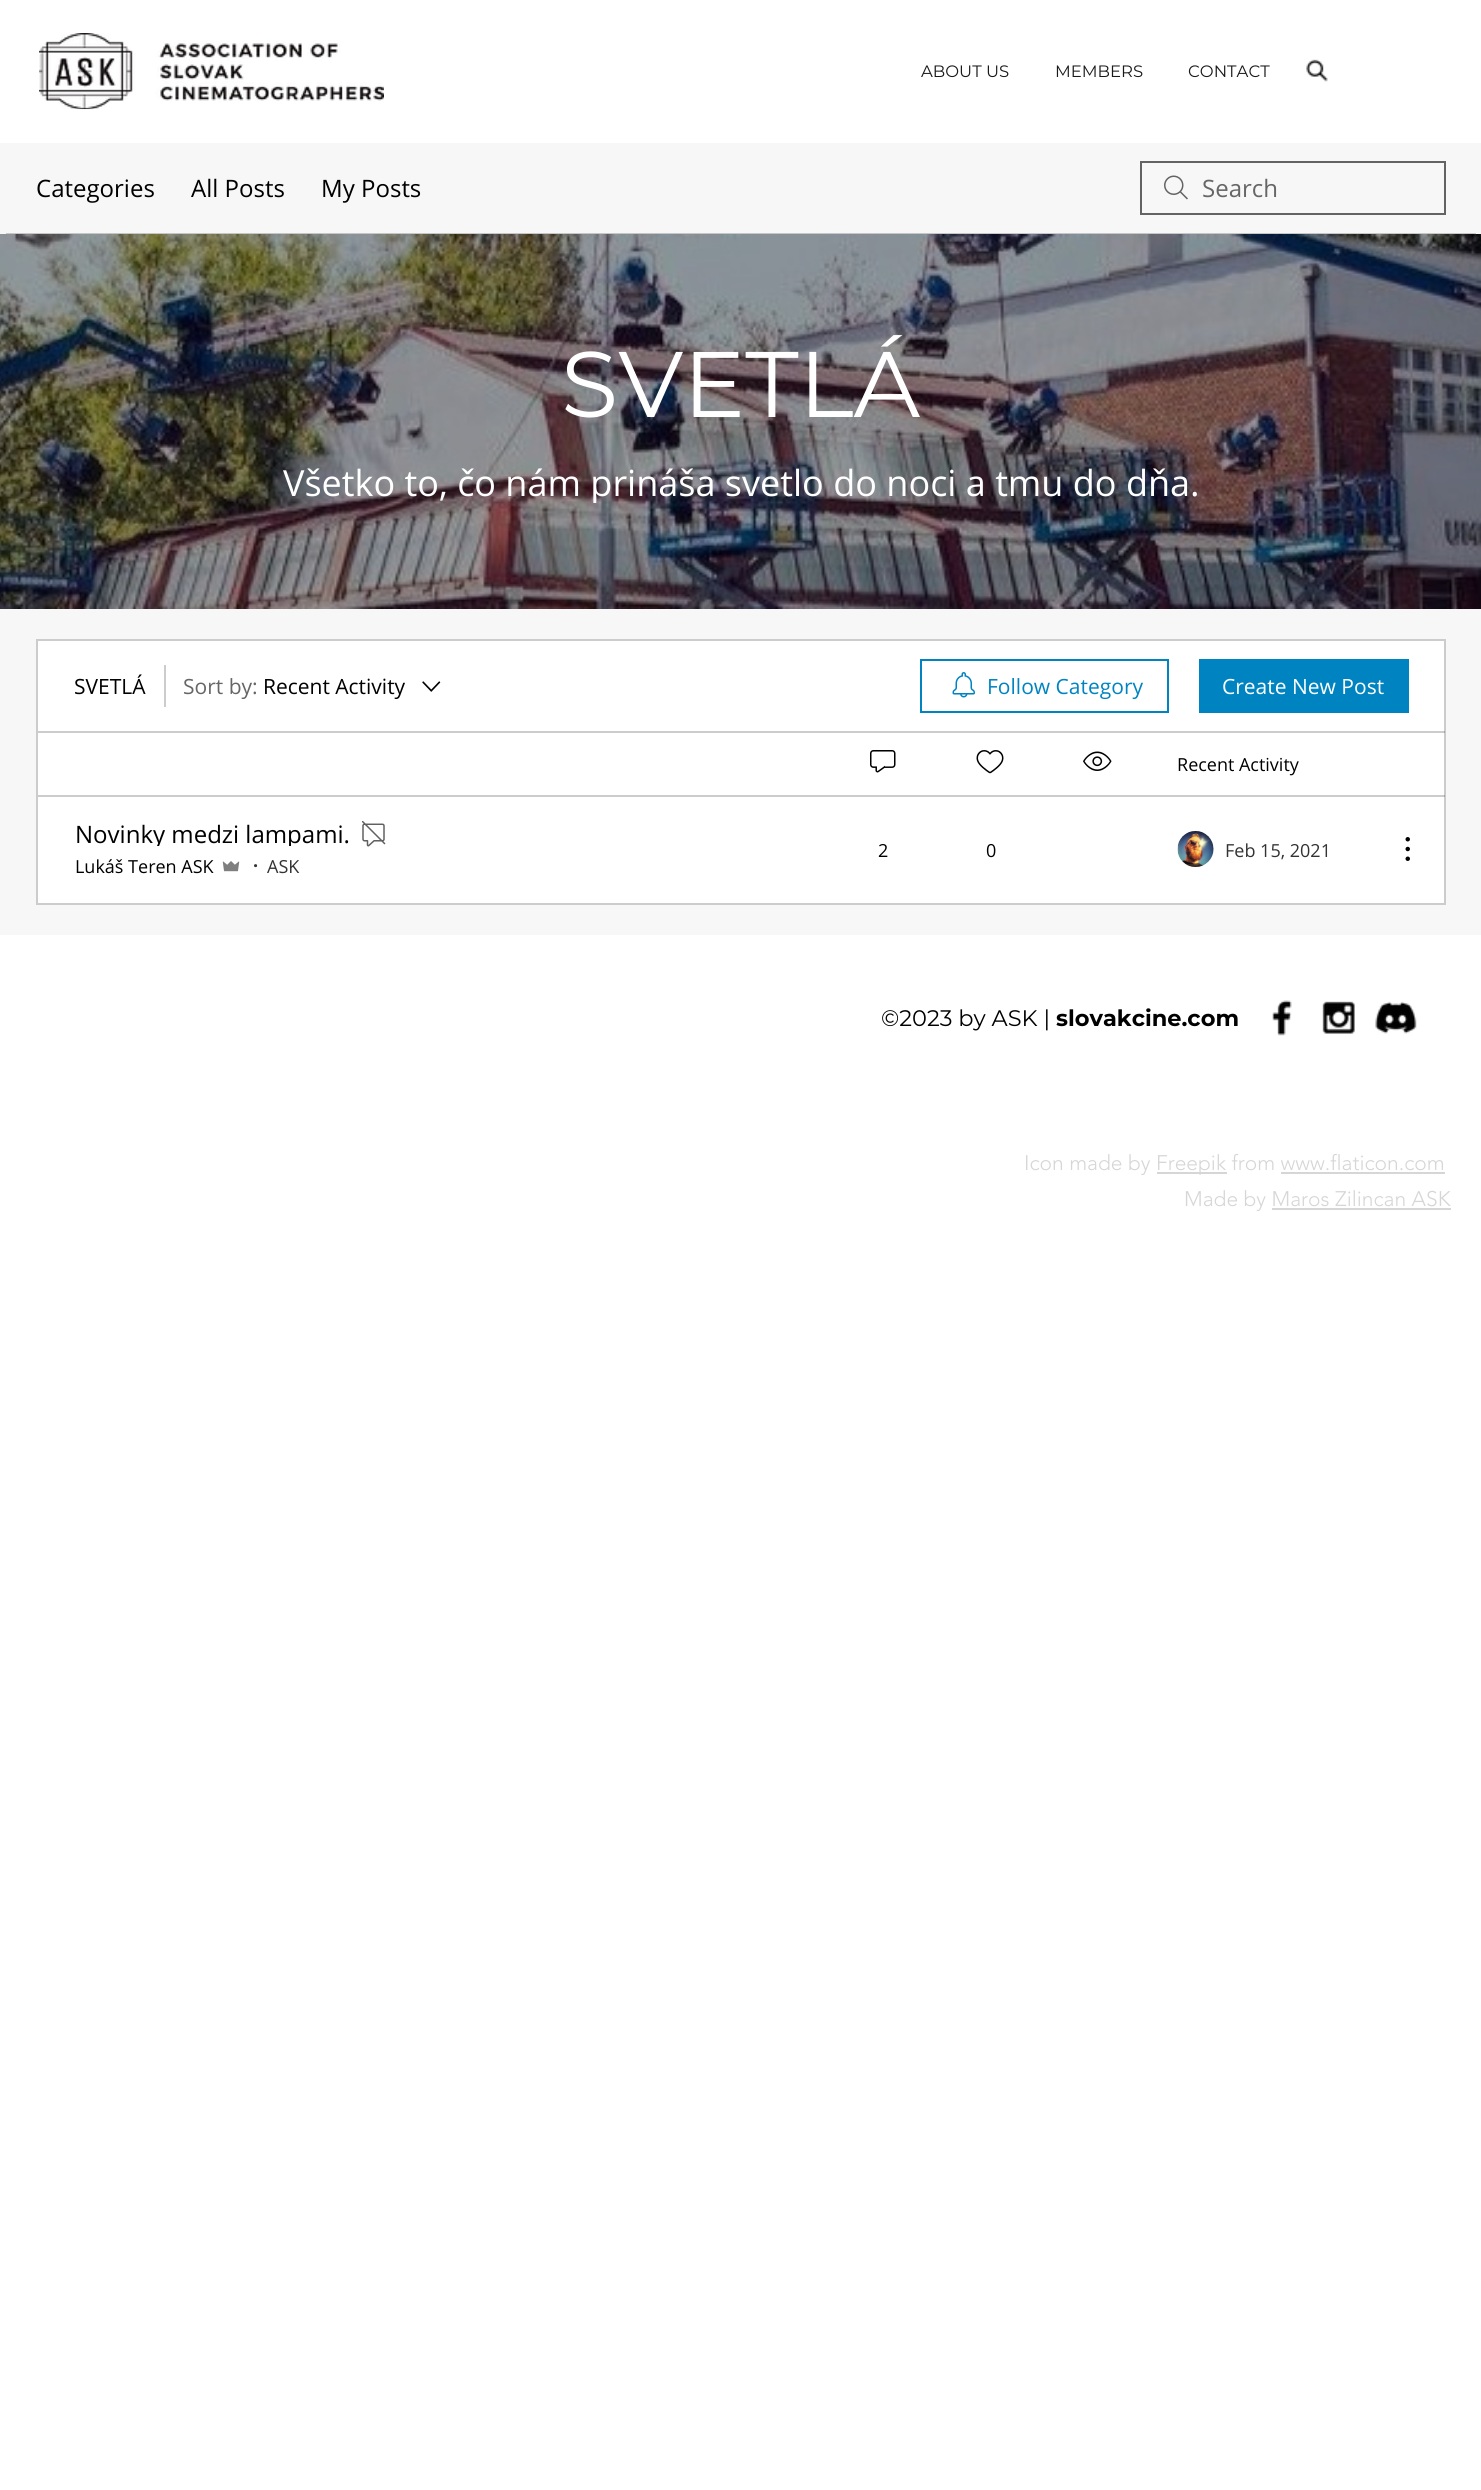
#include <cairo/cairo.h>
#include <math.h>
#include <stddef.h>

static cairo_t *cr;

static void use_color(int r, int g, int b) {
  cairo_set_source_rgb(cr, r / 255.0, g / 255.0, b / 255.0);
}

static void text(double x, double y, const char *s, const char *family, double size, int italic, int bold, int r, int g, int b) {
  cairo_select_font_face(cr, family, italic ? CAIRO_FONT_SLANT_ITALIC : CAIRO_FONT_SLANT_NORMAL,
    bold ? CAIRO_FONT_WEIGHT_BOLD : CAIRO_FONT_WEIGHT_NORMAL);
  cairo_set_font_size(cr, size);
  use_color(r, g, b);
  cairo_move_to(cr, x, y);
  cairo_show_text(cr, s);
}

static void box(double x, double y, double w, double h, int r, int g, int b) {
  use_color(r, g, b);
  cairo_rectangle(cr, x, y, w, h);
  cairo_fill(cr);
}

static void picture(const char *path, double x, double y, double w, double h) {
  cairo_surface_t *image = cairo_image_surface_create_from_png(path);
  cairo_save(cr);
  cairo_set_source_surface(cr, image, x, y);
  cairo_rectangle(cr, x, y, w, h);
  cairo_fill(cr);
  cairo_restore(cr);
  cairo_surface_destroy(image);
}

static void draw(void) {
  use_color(255, 255, 255);
  cairo_paint(cr);
  picture("img_01.png", 39, 33, 345, 77);
  picture("img_02.png", 1306, 59, 22, 23);
  box(0, 143, 1481, 792, 247, 247, 247);
  box(6, 233, 1470, 1, 198, 198, 198);
  picture("img_03.png", 1164, 175, 24, 25);
  cairo_rectangle(cr, 1141, 162, 304, 52);
  use_color(99, 99, 99);
  cairo_stroke(cr);
  picture("img_04.png", 0, 234, 1481, 375);
  use_color(255, 255, 255);
  cairo_rectangle(cr, 37, 640, 1408, 264);
  cairo_fill_preserve(cr);
  use_color(204, 204, 204);
  cairo_stroke(cr);
  box(164, 665, 2, 42, 204, 204, 204);
  picture("img_05.png", 422, 681, 19, 11);
  cairo_rectangle(cr, 921, 660, 247, 52);
  use_color(0, 132, 193);
  cairo_stroke(cr);
  picture("img_06.png", 952, 672, 23, 26);
  box(1199, 659, 210, 54, 0, 132, 193);
  cairo_set_source_rgba(cr, 0, 0, 0, 0.2);
  cairo_rectangle(cr, 38, 731, 1407, 2);
  cairo_fill(cr);
  picture("img_07.png", 870, 750, 26, 23);
  picture("img_08.png", 976, 750, 28, 24);
  picture("img_09.png", 1083, 751, 29, 20);
  cairo_rectangle(cr, 38, 795, 1407, 2);
  cairo_fill(cr);
  picture("img_10.png", 362, 821, 24, 26);
  picture("img_11.png", 222, 861, 18, 11);
  picture("img_12.png", 1177, 831, 37, 36);
  picture("img_13.png", 1405, 837, 5, 24);
  picture("img_14.png", 1272, 1000, 20, 36);
  picture("img_15.png", 1322, 1001, 33, 33);
  picture("img_16.png", 1375, 1001, 42, 33);
  box(1157, 1172, 70, 2, 214, 214, 214);
  box(1281, 1172, 164, 2, 214, 214, 214);
  box(1272, 1208, 179, 2, 214, 214, 214);
  text(921, 77, "ABOUT US", "Montserrat", 16.5, 0, 0, 25, 25, 25);
  text(1055, 77, "MEMBERS", "Montserrat", 16.5, 0, 0, 25, 25, 25);
  text(1188, 77, "CONTACT", "Montserrat", 16.5, 0, 0, 25, 25, 25);
  text(36, 197, "Categories", "Open Sans", 24, 0, 0, 0, 0, 0);
  text(191, 197, "All Posts", "Open Sans", 24, 0, 0, 0, 0, 0);
  text(321, 197, "My Posts", "Open Sans", 24, 0, 0, 0, 0, 0);
  text(1202, 197, "Search", "Open Sans", 24, 0, 0, 102, 102, 102);
  text(561, 417, "SVETLÁ", "Montserrat", 93, 0, 0, 255, 255, 255);
  cairo_save(cr);
  cairo_rectangle(cr, 231, 464, 1020, 39);
  cairo_clip(cr);
  text(283, 496, "Všetko to, čo nám prináša svetlo do noci a tmu do dňa.", "Open Sans", 36, 0, 0, 255, 255, 255);
  cairo_restore(cr);
  text(74, 694, "SVETLÁ", "Open Sans", 21, 0, 0, 0, 0, 0);
  text(183, 694, "Sort by:", "Open Sans", 21, 0, 0, 102, 102, 102);
  text(263, 694, "Recent Activity", "Open Sans", 21, 0, 0, 0, 0, 0);
  text(987, 694, "Follow Category", "Open Sans", 21, 0, 0, 0, 132, 193);
  text(1222, 694, "Create New Post", "Open Sans", 21, 0, 0, 255, 255, 255);
  text(1177, 771, "Recent Activity", "Open Sans", 18, 0, 0, 0, 0, 0);
  cairo_save(cr);
  cairo_rectangle(cr, 75, 822, 275, 24);
  cairo_clip(cr);
  text(75, 843, "Novinky medzi lampami.", "Open Sans", 24, 0, 0, 0, 0, 0);
  cairo_restore(cr);
  text(75, 873, "Lukáš Teren ASK", "Open Sans", 18, 0, 0, 0, 0, 0);
  text(253, 872, "·", "Open Sans", 18, 0, 1, 51, 51, 51);
  text(267, 873, "ASK", "Open Sans", 18, 0, 0, 51, 51, 51);
  text(878, 857, "2", "Open Sans", 18, 0, 0, 0, 0, 0);
  text(986, 857, "0", "Open Sans", 18, 0, 0, 0, 0, 0);
  text(1225, 857, "Feb 15, 2021", "Open Sans", 18, 0, 0, 51, 51, 51);
  text(881, 1026, "©2023 by ASK |", "Montserrat", 22.5, 0, 0, 0, 0, 0);
  text(1056, 1026, "slovakcine.com", "Montserrat", 22.5, 0, 1, 0, 0, 0);
  text(1024, 1170, "Icon made by", "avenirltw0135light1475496 Light", 21, 0, 0, 214, 214, 214);
  text(1156, 1170, "Freepik from www.flaticon.com", "avenirltw0135light1475496 Light", 21, 0, 0, 214, 214, 214);
  text(1184, 1206, "Made by Maros Zilincan ASK", "avenirltw0135light1475496 Light", 21, 0, 0, 214, 214, 214);
}

int main(void) {
  cairo_surface_t *surface = cairo_image_surface_create(CAIRO_FORMAT_RGB24, 1481, 2490);
  cr = cairo_create(surface);
  cairo_font_options_t *options = cairo_font_options_create();
  cairo_font_options_set_hint_metrics(options, CAIRO_HINT_METRICS_OFF);
  cairo_font_options_set_hint_style(options, CAIRO_HINT_STYLE_NONE);
  cairo_set_font_options(cr, options);
  cairo_set_miter_limit(cr, 4);
  draw();
  cairo_surface_write_to_png(surface, "out.png");
  cairo_font_options_destroy(options);
  cairo_destroy(cr);
  cairo_surface_destroy(surface);
  return 0;
}
